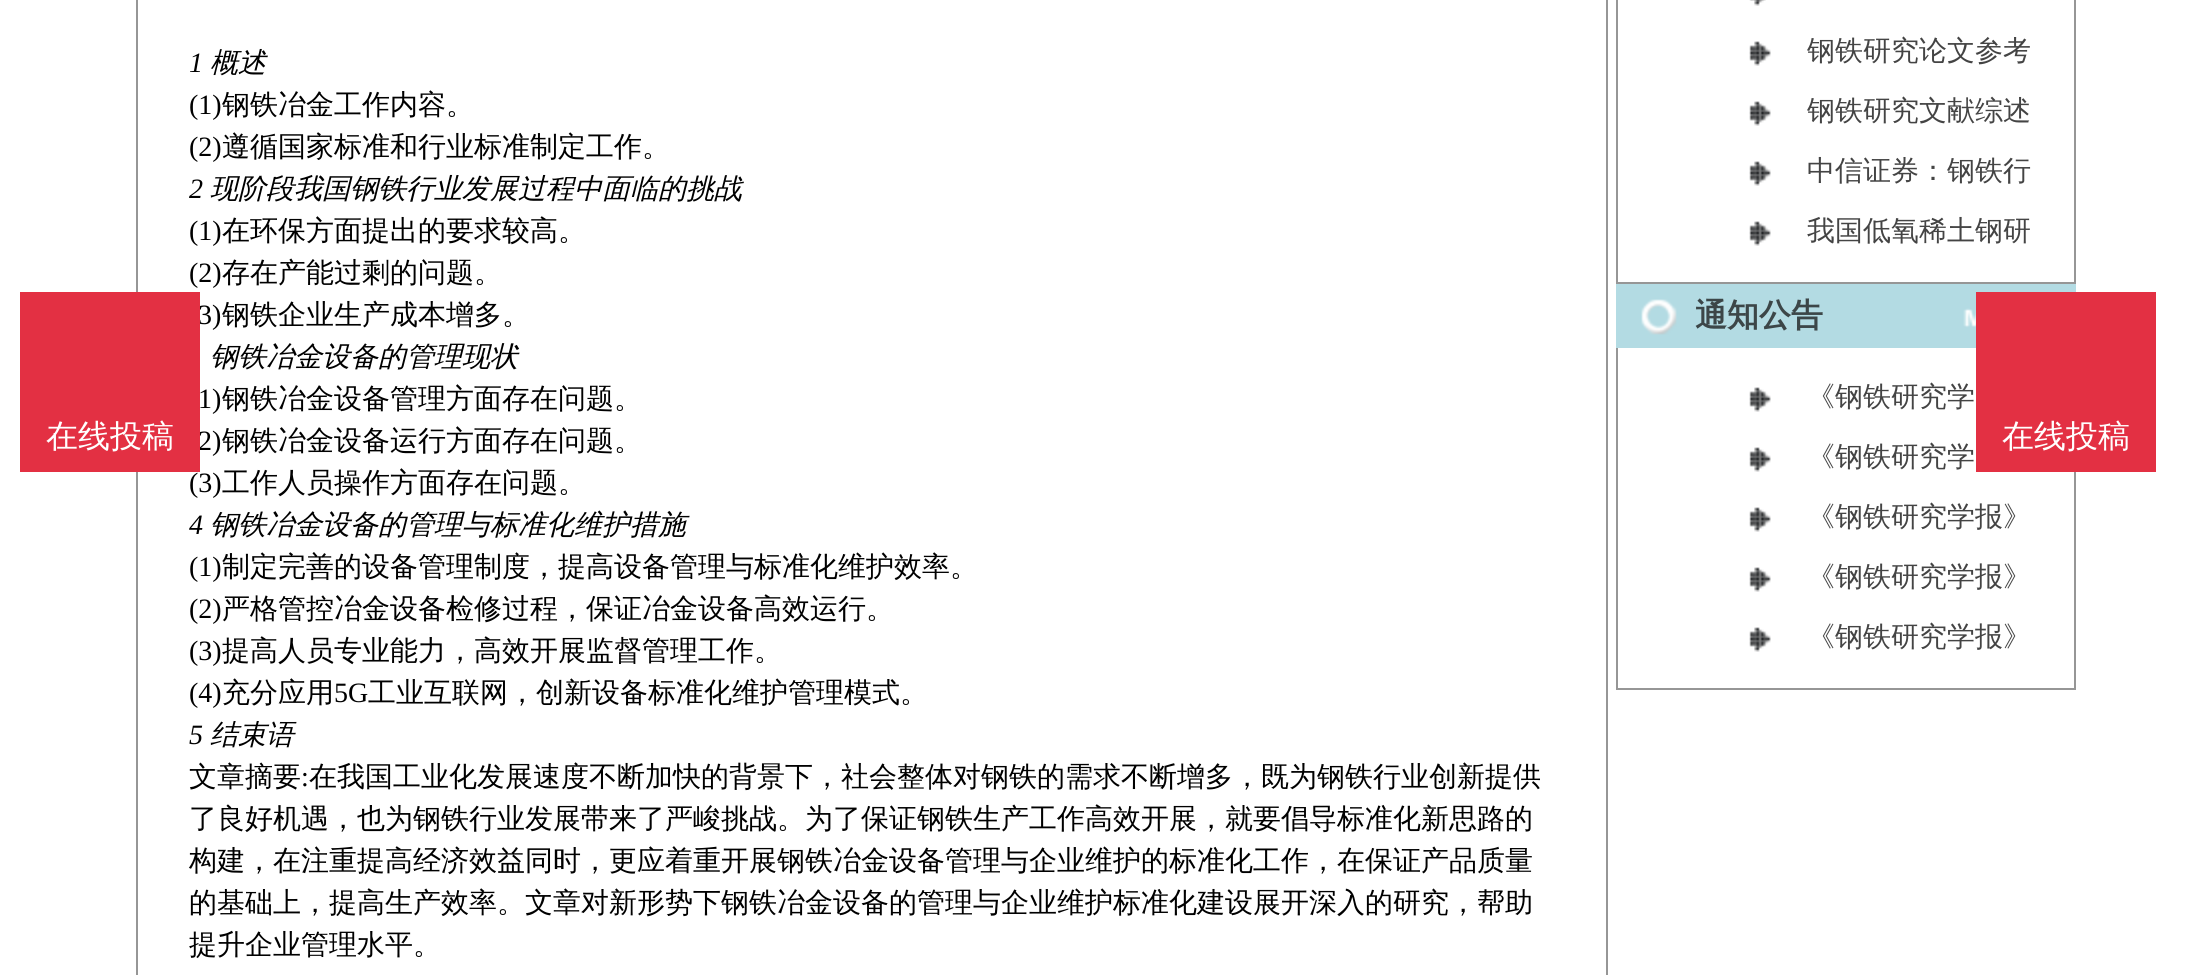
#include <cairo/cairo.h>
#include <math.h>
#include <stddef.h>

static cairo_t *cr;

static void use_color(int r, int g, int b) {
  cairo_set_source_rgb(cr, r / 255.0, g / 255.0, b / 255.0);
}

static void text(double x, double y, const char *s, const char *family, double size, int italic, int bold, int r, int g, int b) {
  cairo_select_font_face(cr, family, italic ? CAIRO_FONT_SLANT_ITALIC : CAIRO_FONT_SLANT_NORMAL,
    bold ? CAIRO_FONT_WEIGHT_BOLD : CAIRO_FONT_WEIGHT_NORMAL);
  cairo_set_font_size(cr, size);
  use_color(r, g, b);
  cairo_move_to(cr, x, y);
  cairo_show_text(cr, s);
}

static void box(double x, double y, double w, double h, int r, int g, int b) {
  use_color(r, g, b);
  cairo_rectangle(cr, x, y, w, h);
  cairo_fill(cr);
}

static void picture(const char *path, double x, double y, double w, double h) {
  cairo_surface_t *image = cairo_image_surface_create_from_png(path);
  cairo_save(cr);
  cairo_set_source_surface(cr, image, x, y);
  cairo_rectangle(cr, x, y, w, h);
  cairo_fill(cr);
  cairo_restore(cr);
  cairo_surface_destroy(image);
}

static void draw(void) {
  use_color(255, 255, 255);
  cairo_paint(cr);
  cairo_rectangle(cr, 137, -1, 1470, 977);
  use_color(150, 150, 150);
  cairo_stroke(cr);
  box(2074, 0, 2, 284, 150, 150, 150);
  box(1616, 282, 460, 2, 150, 150, 150);
  box(1616, 0, 2, 284, 150, 150, 150);
  picture("img_01.png", 1749, 0, 17, 6);
  picture("img_02.png", 1749, 41, 22, 25);
  picture("img_02.png", 1749, 101, 22, 25);
  picture("img_02.png", 1749, 161, 22, 25);
  picture("img_02.png", 1749, 221, 22, 25);
  picture("img_03.png", 1616, 284, 460, 64);
  picture("img_04.png", 1963, 308, 13, 20);
  box(2074, 472, 2, 218, 150, 150, 150);
  box(1616, 688, 460, 2, 150, 150, 150);
  box(1616, 348, 2, 342, 150, 150, 150);
  picture("img_02.png", 1749, 387, 22, 25);
  picture("img_02.png", 1749, 447, 22, 25);
  picture("img_02.png", 1749, 507, 22, 25);
  picture("img_02.png", 1749, 567, 22, 25);
  picture("img_02.png", 1749, 627, 22, 25);
  box(1976, 292, 180, 180, 227, 48, 67);
  text(189, 72, "1", "Liberation Serif", 28, 1, 0, 0, 0, 0);
  text(210, 72, "概述", "WenQuanYi Zen Hei Medium", 28, 1, 0, 0, 0, 0);
  text(189, 114, "(1)", "Liberation Serif", 28, 0, 0, 0, 0, 0);
  text(222, 114, "钢铁冶金工作内容。", "WenQuanYi Zen Hei Medium", 28, 0, 0, 0, 0, 0);
  text(189, 156, "(2)", "Liberation Serif", 28, 0, 0, 0, 0, 0);
  text(222, 156, "遵循国家标准和行业标准制定工作。", "WenQuanYi Zen Hei Medium", 28, 0, 0, 0, 0, 0);
  text(189, 198, "2", "Liberation Serif", 28, 1, 0, 0, 0, 0);
  text(210, 198, "现阶段我国钢铁行业发展过程中面临的挑战", "WenQuanYi Zen Hei Medium", 28, 1, 0, 0, 0, 0);
  text(189, 240, "(1)", "Liberation Serif", 28, 0, 0, 0, 0, 0);
  text(222, 240, "在环保方面提出的要求较高。", "WenQuanYi Zen Hei Medium", 28, 0, 0, 0, 0, 0);
  text(189, 282, "(2)", "Liberation Serif", 28, 0, 0, 0, 0, 0);
  text(222, 282, "存在产能过剩的问题。", "WenQuanYi Zen Hei Medium", 28, 0, 0, 0, 0, 0);
  text(198, 324, "3)", "Liberation Serif", 28, 0, 0, 0, 0, 0);
  text(222, 324, "钢铁企业生产成本增多。", "WenQuanYi Zen Hei Medium", 28, 0, 0, 0, 0, 0);
  text(210, 366, "钢铁冶金设备的管理现状", "WenQuanYi Zen Hei Medium", 28, 1, 0, 0, 0, 0);
  text(198, 408, "1)", "Liberation Serif", 28, 0, 0, 0, 0, 0);
  text(222, 408, "钢铁冶金设备管理方面存在问题。", "WenQuanYi Zen Hei Medium", 28, 0, 0, 0, 0, 0);
  text(198, 450, "2)", "Liberation Serif", 28, 0, 0, 0, 0, 0);
  box(20, 292, 180, 180, 227, 48, 67);
  text(46, 447, "在线投稿", "WenQuanYi Zen Hei Medium", 32, 0, 0, 255, 255, 255);
  text(222, 450, "钢铁冶金设备运行方面存在问题。", "WenQuanYi Zen Hei Medium", 28, 0, 0, 0, 0, 0);
  text(189, 492, "(3)", "Liberation Serif", 28, 0, 0, 0, 0, 0);
  text(222, 492, "工作人员操作方面存在问题。", "WenQuanYi Zen Hei Medium", 28, 0, 0, 0, 0, 0);
  text(189, 534, "4", "Liberation Serif", 28, 1, 0, 0, 0, 0);
  text(210, 534, "钢铁冶金设备的管理与标准化维护措施", "WenQuanYi Zen Hei Medium", 28, 1, 0, 0, 0, 0);
  text(189, 576, "(1)", "Liberation Serif", 28, 0, 0, 0, 0, 0);
  text(222, 576, "制定完善的设备管理制度，提高设备管理与标准化维护效率。", "WenQuanYi Zen Hei Medium", 28, 0, 0, 0, 0, 0);
  text(189, 618, "(2)", "Liberation Serif", 28, 0, 0, 0, 0, 0);
  text(222, 618, "严格管控冶金设备检修过程，保证冶金设备高效运行。", "WenQuanYi Zen Hei Medium", 28, 0, 0, 0, 0, 0);
  text(189, 660, "(3)", "Liberation Serif", 28, 0, 0, 0, 0, 0);
  text(222, 660, "提高人员专业能力，高效开展监督管理工作。", "WenQuanYi Zen Hei Medium", 28, 0, 0, 0, 0, 0);
  text(189, 702, "(4)", "Liberation Serif", 28, 0, 0, 0, 0, 0);
  text(222, 702, "充分应用", "WenQuanYi Zen Hei Medium", 28, 0, 0, 0, 0, 0);
  text(334, 702, "5G", "Liberation Serif", 28, 0, 0, 0, 0, 0);
  text(368, 702, "工业互联网，创新设备标准化维护管理模式。", "WenQuanYi Zen Hei Medium", 28, 0, 0, 0, 0, 0);
  text(189, 744, "5", "Liberation Serif", 28, 1, 0, 0, 0, 0);
  text(210, 744, "结束语", "WenQuanYi Zen Hei Medium", 28, 1, 0, 0, 0, 0);
  text(189, 786, "文章摘要", "WenQuanYi Zen Hei Medium", 28, 0, 0, 0, 0, 0);
  text(301, 786, ":", "Liberation Serif", 28, 0, 0, 0, 0, 0);
  text(309, 786, "在我国工业化发展速度不断加快的背景下，社会整体对钢铁的需求不断增多，既为钢铁行业创新提供", "WenQuanYi Zen Hei Medium", 28, 0, 0, 0, 0, 0);
  text(189, 828, "了良好机遇，也为钢铁行业发展带来了严峻挑战。为了保证钢铁生产工作高效开展，就要倡导标准化新思路的", "WenQuanYi Zen Hei Medium", 28, 0, 0, 0, 0, 0);
  text(189, 870, "构建，在注重提高经济效益同时，更应着重开展钢铁冶金设备管理与企业维护的标准化工作，在保证产品质量", "WenQuanYi Zen Hei Medium", 28, 0, 0, 0, 0, 0);
  text(189, 912, "的基础上，提高生产效率。文章对新形势下钢铁冶金设备的管理与企业维护标准化建设展开深入的研究，帮助", "WenQuanYi Zen Hei Medium", 28, 0, 0, 0, 0, 0);
  text(189, 954, "提升企业管理水平。", "WenQuanYi Zen Hei Medium", 28, 0, 0, 0, 0, 0);
  text(1807, 60, "钢铁研究论文参考", "WenQuanYi Zen Hei Medium", 28, 0, 0, 68, 68, 68);
  text(1807, 120, "钢铁研究文献综述", "WenQuanYi Zen Hei Medium", 28, 0, 0, 68, 68, 68);
  text(1807, 180, "中信证券：钢铁行", "WenQuanYi Zen Hei Medium", 28, 0, 0, 68, 68, 68);
  text(1807, 240, "我国低氧稀土钢研", "WenQuanYi Zen Hei Medium", 28, 0, 0, 68, 68, 68);
  text(1695, 326, "通知公告", "WenQuanYi Zen Hei", 32, 0, 1, 60, 70, 72);
  text(1807, 406, "《钢铁研究学", "WenQuanYi Zen Hei Medium", 28, 0, 0, 68, 68, 68);
  text(1807, 466, "《钢铁研究学", "WenQuanYi Zen Hei Medium", 28, 0, 0, 68, 68, 68);
  text(1807, 526, "《钢铁研究学报》", "WenQuanYi Zen Hei Medium", 28, 0, 0, 68, 68, 68);
  text(1807, 586, "《钢铁研究学报》", "WenQuanYi Zen Hei Medium", 28, 0, 0, 68, 68, 68);
  text(1807, 646, "《钢铁研究学报》", "WenQuanYi Zen Hei Medium", 28, 0, 0, 68, 68, 68);
  text(2002, 447, "在线投稿", "WenQuanYi Zen Hei Medium", 32, 0, 0, 255, 255, 255);
}

int main(void) {
  cairo_surface_t *surface = cairo_image_surface_create(CAIRO_FORMAT_RGB24, 2196, 975);
  cr = cairo_create(surface);
  cairo_font_options_t *options = cairo_font_options_create();
  cairo_font_options_set_hint_metrics(options, CAIRO_HINT_METRICS_OFF);
  cairo_font_options_set_hint_style(options, CAIRO_HINT_STYLE_NONE);
  cairo_set_font_options(cr, options);
  cairo_set_miter_limit(cr, 4);
  draw();
  cairo_surface_write_to_png(surface, "out.png");
  cairo_font_options_destroy(options);
  cairo_destroy(cr);
  cairo_surface_destroy(surface);
  return 0;
}
